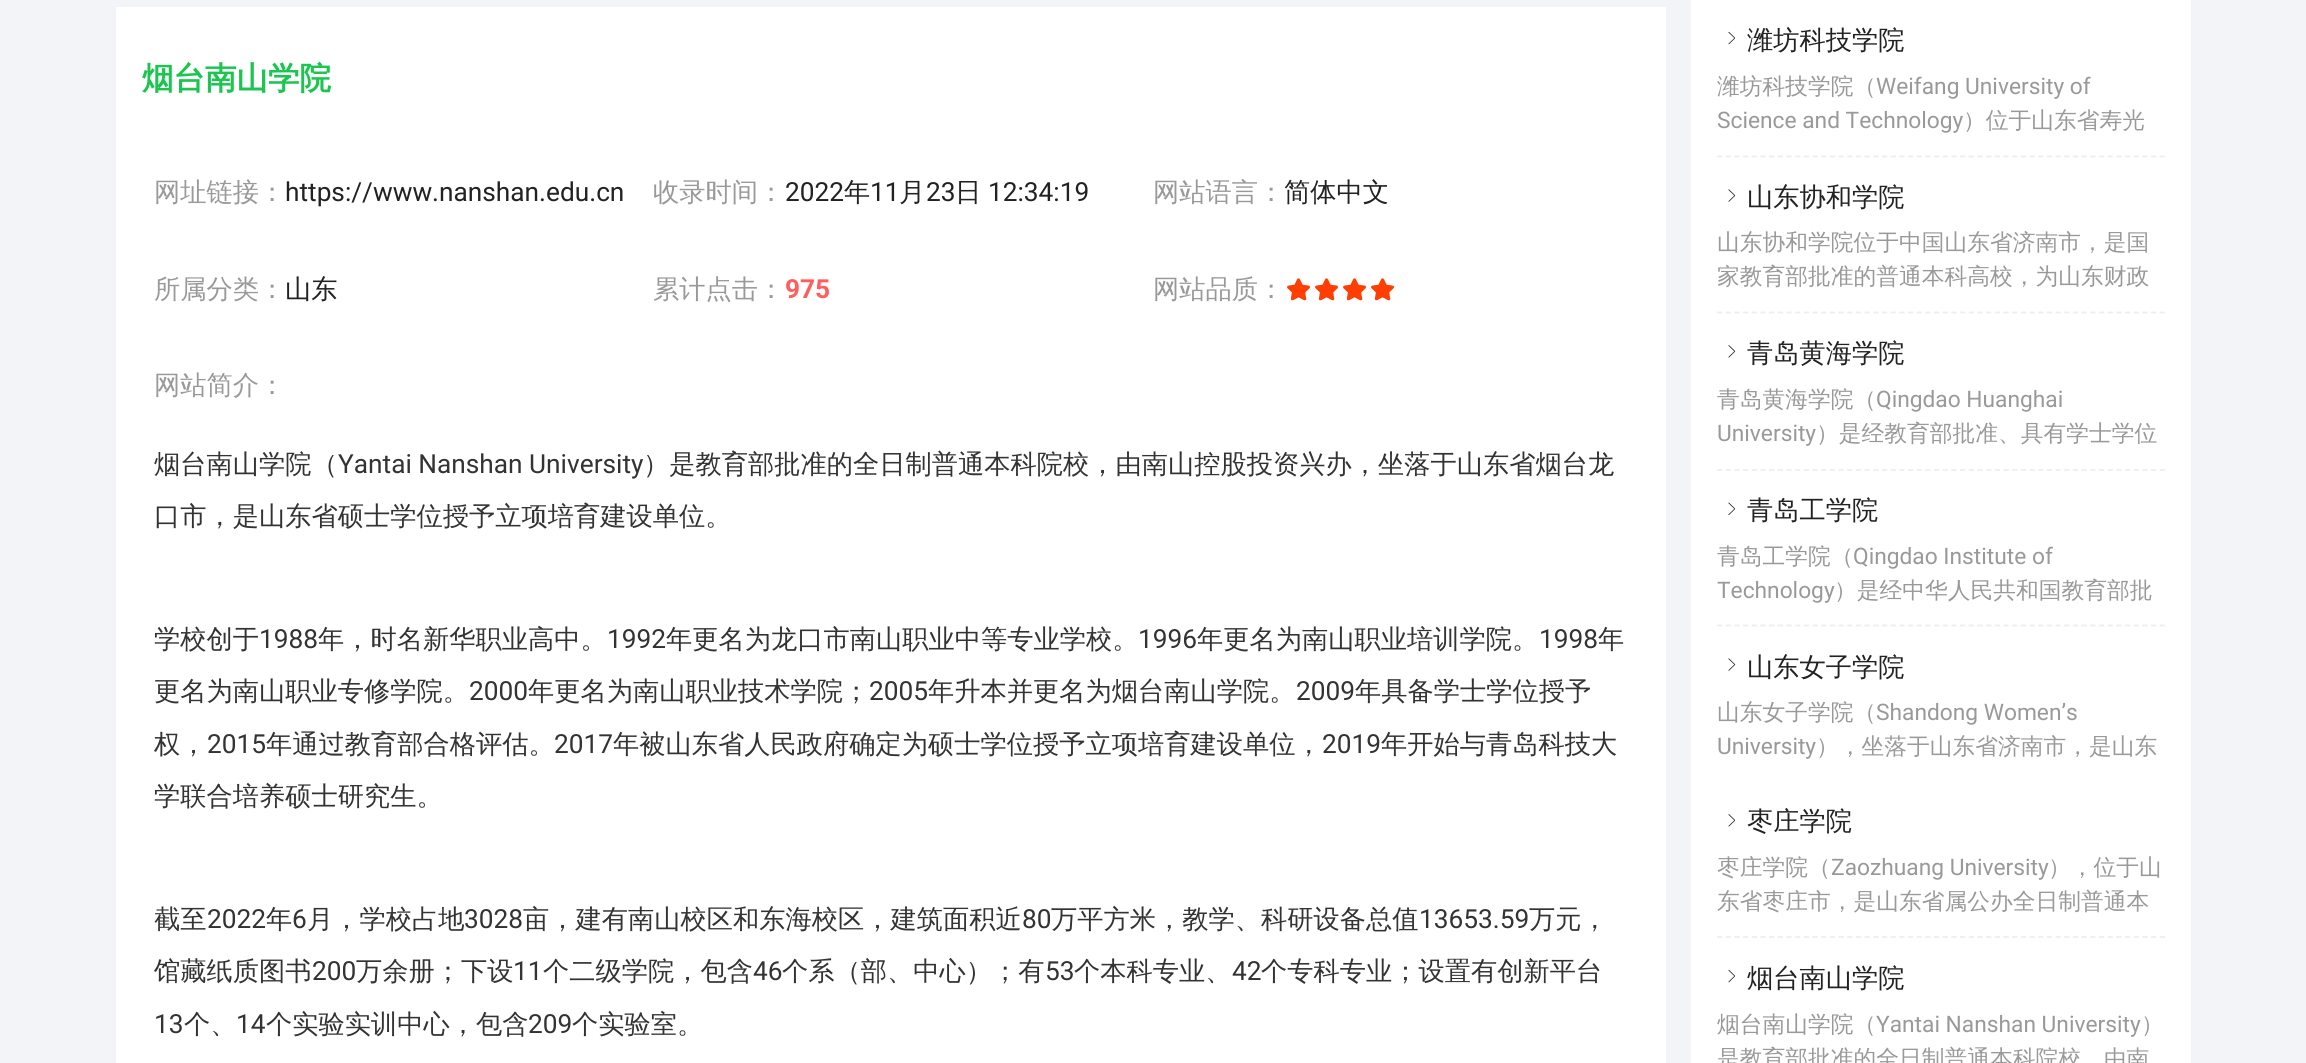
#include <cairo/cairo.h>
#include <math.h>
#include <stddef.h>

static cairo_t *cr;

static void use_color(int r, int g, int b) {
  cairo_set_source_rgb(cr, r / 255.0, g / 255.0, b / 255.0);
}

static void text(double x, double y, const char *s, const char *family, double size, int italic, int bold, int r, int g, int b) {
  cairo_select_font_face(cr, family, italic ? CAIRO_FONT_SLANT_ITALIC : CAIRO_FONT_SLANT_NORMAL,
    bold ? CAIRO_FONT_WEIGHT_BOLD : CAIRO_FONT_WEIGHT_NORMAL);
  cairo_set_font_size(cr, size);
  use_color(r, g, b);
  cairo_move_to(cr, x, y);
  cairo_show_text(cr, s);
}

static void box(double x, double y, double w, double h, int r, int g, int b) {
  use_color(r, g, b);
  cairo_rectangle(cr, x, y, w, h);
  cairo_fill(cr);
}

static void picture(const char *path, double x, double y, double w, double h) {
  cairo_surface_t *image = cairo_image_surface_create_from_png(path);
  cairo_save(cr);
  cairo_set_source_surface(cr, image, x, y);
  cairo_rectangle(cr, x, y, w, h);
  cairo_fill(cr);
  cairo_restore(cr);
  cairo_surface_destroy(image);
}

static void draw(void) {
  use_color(243, 244, 247);
  cairo_paint(cr);
  box(116, 7, 1550, 1056, 255, 255, 255);
  picture("img_01.png", 1287, 278, 23, 23);
  picture("img_01.png", 1315, 278, 23, 23);
  picture("img_01.png", 1343, 278, 23, 23);
  picture("img_01.png", 1371, 278, 23, 23);
  box(1691, 0, 500, 1063, 255, 255, 255);
  cairo_new_path(cr);
  cairo_move_to(cr, 1717, 156.5);
  cairo_line_to(cr, 2165, 156.5);
  use_color(238, 238, 238);
  cairo_set_line_width(cr, 1.8);
  cairo_set_dash(cr, (double[]){5.25, 3.43}, 2, 0);
  cairo_stroke(cr);
  picture("img_02.png", 1728, 31, 7, 14);
  cairo_new_path(cr);
  cairo_move_to(cr, 1717, 312.5);
  cairo_line_to(cr, 2165, 312.5);
  cairo_stroke(cr);
  picture("img_03.png", 1728, 189, 8, 13);
  cairo_new_path(cr);
  cairo_move_to(cr, 1717, 470);
  cairo_line_to(cr, 2165, 470);
  cairo_stroke(cr);
  picture("img_04.png", 1728, 345, 8, 13);
  cairo_new_path(cr);
  cairo_move_to(cr, 1717, 625.5);
  cairo_line_to(cr, 2165, 625.5);
  cairo_stroke(cr);
  picture("img_05.png", 1728, 502, 8, 13);
  picture("img_03.png", 1728, 658, 8, 13);
  cairo_new_path(cr);
  cairo_move_to(cr, 1717, 937);
  cairo_line_to(cr, 2165, 937);
  cairo_stroke(cr);
  picture("img_04.png", 1728, 814, 8, 13);
  picture("img_02.png", 1728, 969, 7, 14);
  text(142, 89, "烟台南山学院", "WenQuanYi Zen Hei", 31.5, 0, 1, 27, 197, 80);
  text(154, 201, "网址链接：", "WenQuanYi Zen Hei Medium", 26.25, 0, 0, 153, 153, 153);
  text(285, 201, "https://www.nanshan.edu.cn", "Roboto", 26.25, 0, 0, 34, 34, 34);
  text(653, 201, "收录时间：", "WenQuanYi Zen Hei Medium", 26.25, 0, 0, 153, 153, 153);
  text(785, 201, "2022", "Roboto", 26.25, 0, 0, 34, 34, 34);
  text(844, 201, "年", "WenQuanYi Zen Hei Medium", 26.25, 0, 0, 34, 34, 34);
  text(870, 201, "11", "Roboto", 26.25, 0, 0, 34, 34, 34);
  text(899, 201, "月", "WenQuanYi Zen Hei Medium", 26.25, 0, 0, 34, 34, 34);
  text(926, 201, "23", "Roboto", 26.25, 0, 0, 34, 34, 34);
  text(955, 201, "日", "WenQuanYi Zen Hei Medium", 26.25, 0, 0, 34, 34, 34);
  text(988, 201, "12:34:19", "Roboto", 26.25, 0, 0, 34, 34, 34);
  text(1153, 201, "网站语言：", "WenQuanYi Zen Hei Medium", 26.25, 0, 0, 153, 153, 153);
  text(1284, 201, "简体中文", "WenQuanYi Zen Hei Medium", 26.25, 0, 0, 34, 34, 34);
  text(154, 298, "所属分类：", "WenQuanYi Zen Hei Medium", 26.25, 0, 0, 153, 153, 153);
  text(285, 298, "山东", "WenQuanYi Zen Hei Medium", 26.25, 0, 0, 34, 34, 34);
  text(653, 298, "累计点击：", "WenQuanYi Zen Hei Medium", 26.25, 0, 0, 153, 153, 153);
  text(785, 298, "975", "Roboto", 26.25, 0, 1, 255, 94, 92);
  text(1153, 298, "网站品质：", "WenQuanYi Zen Hei Medium", 26.25, 0, 0, 153, 153, 153);
  text(154, 394, "网站简介：", "WenQuanYi Zen Hei Medium", 26.25, 0, 0, 153, 153, 153);
  text(154, 473, "烟台南山学院（", "WenQuanYi Zen Hei Medium", 26.25, 0, 0, 51, 51, 51);
  text(338, 473, "Yantai Nanshan University", "Roboto", 26.25, 0, 0, 51, 51, 51);
  text(643, 473, "）是教育部批准的全日制普通本科院校，由南山控股投资兴办，坐落于山东省烟台龙", "WenQuanYi Zen Hei Medium", 26.25, 0, 0, 51, 51, 51);
  text(154, 525, "口市，是山东省硕士学位授予立项培育建设单位。", "WenQuanYi Zen Hei Medium", 26.25, 0, 0, 51, 51, 51);
  text(154, 648, "学校创于", "WenQuanYi Zen Hei Medium", 26.25, 0, 0, 51, 51, 51);
  text(259, 648, "1988", "Roboto", 26.25, 0, 0, 51, 51, 51);
  text(318, 648, "年，时名新华职业高中。", "WenQuanYi Zen Hei Medium", 26.25, 0, 0, 51, 51, 51);
  text(607, 648, "1992", "Roboto", 26.25, 0, 0, 51, 51, 51);
  text(666, 648, "年更名为龙口市南山职业中等专业学校。", "WenQuanYi Zen Hei Medium", 26.25, 0, 0, 51, 51, 51);
  text(1138, 648, "1996", "Roboto", 26.25, 0, 0, 51, 51, 51);
  text(1197, 648, "年更名为南山职业培训学院。", "WenQuanYi Zen Hei Medium", 26.25, 0, 0, 51, 51, 51);
  text(1539, 648, "1998", "Roboto", 26.25, 0, 0, 51, 51, 51);
  text(1598, 648, "年", "WenQuanYi Zen Hei Medium", 26.25, 0, 0, 51, 51, 51);
  text(154, 700, "更名为南山职业专修学院。", "WenQuanYi Zen Hei Medium", 26.25, 0, 0, 51, 51, 51);
  text(469, 700, "2000", "Roboto", 26.25, 0, 0, 51, 51, 51);
  text(528, 700, "年更名为南山职业技术学院；", "WenQuanYi Zen Hei Medium", 26.25, 0, 0, 51, 51, 51);
  text(869, 700, "2005", "Roboto", 26.25, 0, 0, 51, 51, 51);
  text(928, 700, "年升本并更名为烟台南山学院。", "WenQuanYi Zen Hei Medium", 26.25, 0, 0, 51, 51, 51);
  text(1296, 700, "2009", "Roboto", 26.25, 0, 0, 51, 51, 51);
  text(1355, 700, "年具备学士学位授予", "WenQuanYi Zen Hei Medium", 26.25, 0, 0, 51, 51, 51);
  text(154, 753, "权，", "WenQuanYi Zen Hei Medium", 26.25, 0, 0, 51, 51, 51);
  text(207, 753, "2015", "Roboto", 26.25, 0, 0, 51, 51, 51);
  text(266, 753, "年通过教育部合格评估。", "WenQuanYi Zen Hei Medium", 26.25, 0, 0, 51, 51, 51);
  text(554, 753, "2017", "Roboto", 26.25, 0, 0, 51, 51, 51);
  text(613, 753, "年被山东省人民政府确定为硕士学位授予立项培育建设单位，", "WenQuanYi Zen Hei Medium", 26.25, 0, 0, 51, 51, 51);
  text(1322, 753, "2019", "Roboto", 26.25, 0, 0, 51, 51, 51);
  text(1381, 753, "年开始与青岛科技大", "WenQuanYi Zen Hei Medium", 26.25, 0, 0, 51, 51, 51);
  text(154, 805, "学联合培养硕士研究生。", "WenQuanYi Zen Hei Medium", 26.25, 0, 0, 51, 51, 51);
  text(154, 928, "截至", "WenQuanYi Zen Hei Medium", 26.25, 0, 0, 51, 51, 51);
  text(207, 928, "2022", "Roboto", 26.25, 0, 0, 51, 51, 51);
  text(266, 928, "年", "WenQuanYi Zen Hei Medium", 26.25, 0, 0, 51, 51, 51);
  text(292, 928, "6", "Roboto", 26.25, 0, 0, 51, 51, 51);
  text(307, 928, "月，学校占地", "WenQuanYi Zen Hei Medium", 26.25, 0, 0, 51, 51, 51);
  text(464, 928, "3028", "Roboto", 26.25, 0, 0, 51, 51, 51);
  text(523, 928, "亩，建有南山校区和东海校区，建筑面积近", "WenQuanYi Zen Hei Medium", 26.25, 0, 0, 51, 51, 51);
  text(1022, 928, "80", "Roboto", 26.25, 0, 0, 51, 51, 51);
  text(1051, 928, "万平方米，教学、科研设备总值", "WenQuanYi Zen Hei Medium", 26.25, 0, 0, 51, 51, 51);
  text(1419, 928, "13653.59", "Roboto", 26.25, 0, 0, 51, 51, 51);
  text(1529, 928, "万元，", "WenQuanYi Zen Hei Medium", 26.25, 0, 0, 51, 51, 51);
  text(154, 980, "馆藏纸质图书", "WenQuanYi Zen Hei Medium", 26.25, 0, 0, 51, 51, 51);
  text(312, 980, "200", "Roboto", 26.25, 0, 0, 51, 51, 51);
  text(356, 980, "万余册；下设", "WenQuanYi Zen Hei Medium", 26.25, 0, 0, 51, 51, 51);
  text(513, 980, "11", "Roboto", 26.25, 0, 0, 51, 51, 51);
  text(543, 980, "个二级学院，包含", "WenQuanYi Zen Hei Medium", 26.25, 0, 0, 51, 51, 51);
  text(753, 980, "46", "Roboto", 26.25, 0, 0, 51, 51, 51);
  text(782, 980, "个系（部、中心）；有", "WenQuanYi Zen Hei Medium", 26.25, 0, 0, 51, 51, 51);
  text(1045, 980, "53", "Roboto", 26.25, 0, 0, 51, 51, 51);
  text(1074, 980, "个本科专业、", "WenQuanYi Zen Hei Medium", 26.25, 0, 0, 51, 51, 51);
  text(1232, 980, "42", "Roboto", 26.25, 0, 0, 51, 51, 51);
  text(1261, 980, "个专科专业；设置有创新平台", "WenQuanYi Zen Hei Medium", 26.25, 0, 0, 51, 51, 51);
  text(154, 1033, "13", "Roboto", 26.25, 0, 0, 51, 51, 51);
  text(184, 1033, "个、", "WenQuanYi Zen Hei Medium", 26.25, 0, 0, 51, 51, 51);
  text(236, 1033, "14", "Roboto", 26.25, 0, 0, 51, 51, 51);
  text(266, 1033, "个实验实训中心，包含", "WenQuanYi Zen Hei Medium", 26.25, 0, 0, 51, 51, 51);
  text(528, 1033, "209", "Roboto", 26.25, 0, 0, 51, 51, 51);
  text(572, 1033, "个实验室。", "WenQuanYi Zen Hei Medium", 26.25, 0, 0, 51, 51, 51);
  text(1747, 49, "潍坊科技学院", "WenQuanYi Zen Hei Medium", 26.25, 0, 0, 34, 34, 34);
  text(1717, 94, "潍坊科技学院（", "WenQuanYi Zen Hei Medium", 22.75, 0, 0, 153, 153, 153);
  text(1876, 94, "Weifang University of", "Roboto", 22.75, 0, 0, 153, 153, 153);
  text(1717, 128, "Science and Technology", "Roboto", 22.75, 0, 0, 153, 153, 153);
  text(1963, 128, "）位于山东省寿光", "WenQuanYi Zen Hei Medium", 22.75, 0, 0, 153, 153, 153);
  text(1747, 206, "山东协和学院", "WenQuanYi Zen Hei Medium", 26.25, 0, 0, 34, 34, 34);
  text(1717, 250, "山东协和学院位于中国山东省济南市，是国", "WenQuanYi Zen Hei Medium", 22.75, 0, 0, 153, 153, 153);
  text(1717, 284, "家教育部批准的普通本科高校，为山东财政", "WenQuanYi Zen Hei Medium", 22.75, 0, 0, 153, 153, 153);
  text(1747, 362, "青岛黄海学院", "WenQuanYi Zen Hei Medium", 26.25, 0, 0, 34, 34, 34);
  text(1717, 407, "青岛黄海学院（", "WenQuanYi Zen Hei Medium", 22.75, 0, 0, 153, 153, 153);
  text(1876, 407, "Qingdao Huanghai", "Roboto", 22.75, 0, 0, 153, 153, 153);
  text(1717, 441, "University", "Roboto", 22.75, 0, 0, 153, 153, 153);
  text(1816, 441, "）是经教育部批准、具有学士学位", "WenQuanYi Zen Hei Medium", 22.75, 0, 0, 153, 153, 153);
  text(1747, 519, "青岛工学院", "WenQuanYi Zen Hei Medium", 26.25, 0, 0, 34, 34, 34);
  text(1717, 564, "青岛工学院（", "WenQuanYi Zen Hei Medium", 22.75, 0, 0, 153, 153, 153);
  text(1853, 564, "Qingdao Institute of", "Roboto", 22.75, 0, 0, 153, 153, 153);
  text(1717, 598, "Technology", "Roboto", 22.75, 0, 0, 153, 153, 153);
  text(1834, 598, "）是经中华人民共和国教育部批", "WenQuanYi Zen Hei Medium", 22.75, 0, 0, 153, 153, 153);
  text(1747, 676, "山东女子学院", "WenQuanYi Zen Hei Medium", 26.25, 0, 0, 34, 34, 34);
  text(1717, 720, "山东女子学院（", "WenQuanYi Zen Hei Medium", 22.75, 0, 0, 153, 153, 153);
  text(1876, 720, "Shandong Women’s", "Roboto", 22.75, 0, 0, 153, 153, 153);
  text(1717, 754, "University", "Roboto", 22.75, 0, 0, 153, 153, 153);
  text(1816, 754, "），坐落于山东省济南市，是山东", "WenQuanYi Zen Hei Medium", 22.75, 0, 0, 153, 153, 153);
  text(1747, 830, "枣庄学院", "WenQuanYi Zen Hei Medium", 26.25, 0, 0, 34, 34, 34);
  text(1717, 875, "枣庄学院（", "WenQuanYi Zen Hei Medium", 22.75, 0, 0, 153, 153, 153);
  text(1831, 875, "Zaozhuang University", "Roboto", 22.75, 0, 0, 153, 153, 153);
  text(2048, 875, "），位于山", "WenQuanYi Zen Hei Medium", 22.75, 0, 0, 153, 153, 153);
  text(1717, 909, "东省枣庄市，是山东省属公办全日制普通本", "WenQuanYi Zen Hei Medium", 22.75, 0, 0, 153, 153, 153);
  text(1747, 987, "烟台南山学院", "WenQuanYi Zen Hei Medium", 26.25, 0, 0, 34, 34, 34);
  text(1717, 1032, "烟台南山学院（", "WenQuanYi Zen Hei Medium", 22.75, 0, 0, 153, 153, 153);
  text(1876, 1032, "Yantai Nanshan University", "Roboto", 22.75, 0, 0, 153, 153, 153);
  text(2141, 1032, "）", "WenQuanYi Zen Hei Medium", 22.75, 0, 0, 153, 153, 153);
  text(1717, 1066, "是教育部批准的全日制普通本科院校，由南", "WenQuanYi Zen Hei Medium", 22.75, 0, 0, 153, 153, 153);
}

int main(void) {
  cairo_surface_t *surface = cairo_image_surface_create(CAIRO_FORMAT_RGB24, 2306, 1063);
  cr = cairo_create(surface);
  cairo_font_options_t *options = cairo_font_options_create();
  cairo_font_options_set_hint_metrics(options, CAIRO_HINT_METRICS_OFF);
  cairo_font_options_set_hint_style(options, CAIRO_HINT_STYLE_NONE);
  cairo_set_font_options(cr, options);
  cairo_set_miter_limit(cr, 4);
  draw();
  cairo_surface_write_to_png(surface, "out.png");
  cairo_font_options_destroy(options);
  cairo_destroy(cr);
  cairo_surface_destroy(surface);
  return 0;
}
